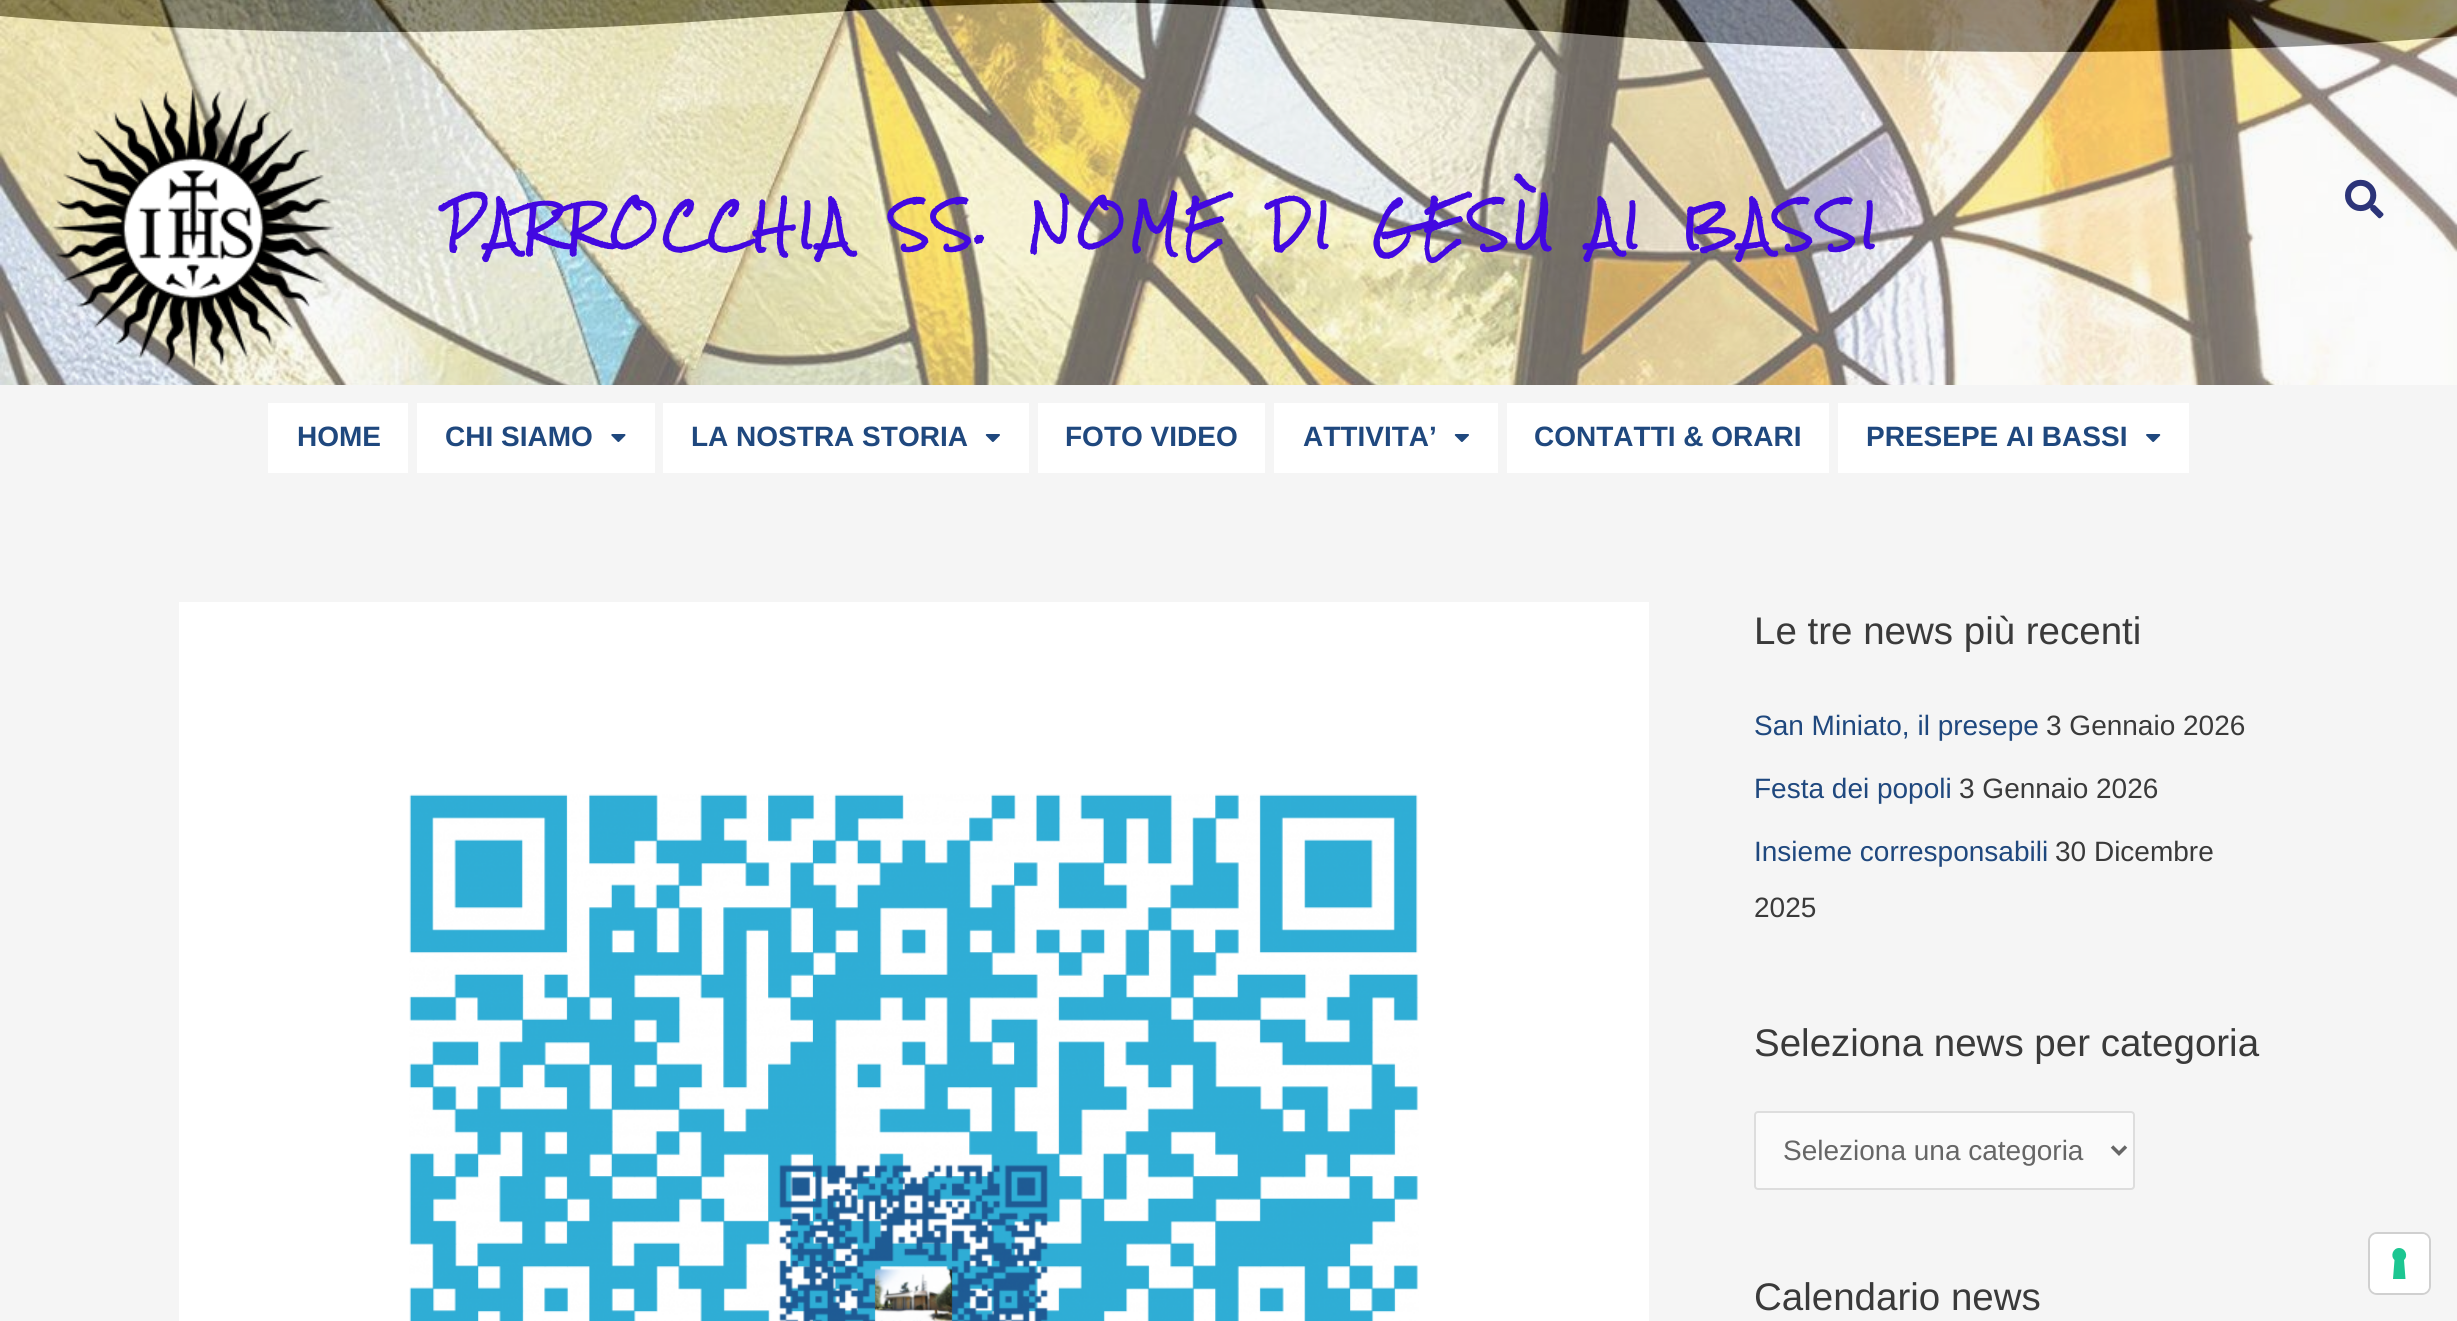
#include <cairo/cairo.h>
#include <math.h>
#include <stddef.h>

static cairo_t *cr;

static void use_color(int r, int g, int b) {
  cairo_set_source_rgb(cr, r / 255.0, g / 255.0, b / 255.0);
}

static void text(double x, double y, const char *s, const char *family, double size, int italic, int bold, int r, int g, int b) {
  cairo_select_font_face(cr, family, italic ? CAIRO_FONT_SLANT_ITALIC : CAIRO_FONT_SLANT_NORMAL,
    bold ? CAIRO_FONT_WEIGHT_BOLD : CAIRO_FONT_WEIGHT_NORMAL);
  cairo_set_font_size(cr, size);
  use_color(r, g, b);
  cairo_move_to(cr, x, y);
  cairo_show_text(cr, s);
}

static void spaced_text(double x, double y, const char *s, double letter, double word) {
  cairo_move_to(cr, x, y);
  while (*s) {
    char ch[5] = {0};
    int n = 0;
    do ch[n++] = *s++; while ((*s & 0xC0) == 0x80);
    cairo_show_text(cr, ch);
    cairo_rel_move_to(cr, letter + word * (*ch == ' '), 0);
  }
}

static void box(double x, double y, double w, double h, int r, int g, int b) {
  use_color(r, g, b);
  cairo_rectangle(cr, x, y, w, h);
  cairo_fill(cr);
}

static void round_rect(double x, double y, double w, double h, double r) {
  cairo_new_sub_path(cr);
  cairo_arc(cr, x + w - r, y + h - r, r, 0, M_PI / 2);
  cairo_arc(cr, x + r, y + h - r, r, M_PI / 2, M_PI);
  cairo_arc(cr, x + r, y + r, r, M_PI, 1.5 * M_PI);
  cairo_arc(cr, x + w - r, y + r, r, 1.5 * M_PI, 2 * M_PI);
  cairo_close_path(cr);
}

static void picture(const char *path, double x, double y, double w, double h) {
  cairo_surface_t *image = cairo_image_surface_create_from_png(path);
  cairo_save(cr);
  cairo_set_source_surface(cr, image, x, y);
  cairo_rectangle(cr, x, y, w, h);
  cairo_fill(cr);
  cairo_restore(cr);
  cairo_surface_destroy(image);
}

static void draw(void) {
  use_color(245, 245, 245);
  cairo_paint(cr);
  use_color(0, 0, 0);
  cairo_new_path(cr);
  cairo_move_to(cr, 1038, 3);
  cairo_curve_to(cr, 1247, -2, 1455, 27, 1664, 40);
  cairo_curve_to(cr, 1826, 50, 1989, 54, 2151, 51);
  cairo_curve_to(cr, 2254, 49, 2357, 45, 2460, 36);
  cairo_line_to(cr, 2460, 0);
  cairo_line_to(cr, 0, 0);
  cairo_line_to(cr, 0, 16);
  cairo_curve_to(cr, 0, 16, 177, 33, 390, 32);
  cairo_curve_to(cr, 486, 32, 618, 28, 719, 20);
  cairo_curve_to(cr, 771, 16, 847, 11, 915, 7);
  cairo_curve_to(cr, 982, 4, 1012, 4, 1038, 3);
  cairo_close_path(cr);
  cairo_fill(cr);
  picture("img_01.png", 0, 0, 2457, 385);
  picture("img_02.png", 52, 87, 282, 281);
  picture("img_03.png", 2345, 179, 39, 40);
  box(268, 403, 140, 70, 255, 255, 255);
  box(417, 403, 238, 70, 255, 255, 255);
  picture("img_04.png", 611, 434, 15, 8);
  box(663, 403, 366, 70, 255, 255, 255);
  picture("img_05.png", 985, 434, 15, 8);
  box(1038, 403, 227, 70, 255, 255, 255);
  box(1274, 403, 224, 70, 255, 255, 255);
  picture("img_05.png", 1454, 434, 15, 8);
  box(1507, 403, 322, 70, 255, 255, 255);
  box(1838, 403, 351, 70, 255, 255, 255);
  picture("img_06.png", 2146, 434, 15, 8);
  box(179, 602, 1470, 719, 255, 255, 255);
  picture("img_07.png", 409, 794, 1010, 527);
  use_color(250, 250, 250);
  round_rect(1755, 1112, 379, 77, 3);
  cairo_fill_preserve(cr);
  use_color(221, 221, 221);
  cairo_stroke(cr);
  cairo_new_path(cr);
  cairo_move_to(cr, 2112, 1146.5);
  cairo_line_to(cr, 2119, 1153.5);
  cairo_line_to(cr, 2126, 1146.5);
  use_color(102, 102, 102);
  cairo_set_line_width(cr, 3.5);
  cairo_stroke(cr);
  round_rect(2369, 1233, 61, 61, 8);
  use_color(208, 208, 208);
  cairo_set_line_width(cr, 2);
  cairo_stroke(cr);
  use_color(255, 255, 255);
  round_rect(2370, 1234, 59, 59, 7);
  cairo_fill(cr);
  use_color(28, 198, 145);
  cairo_set_fill_rule(cr, CAIRO_FILL_RULE_EVEN_ODD);
  cairo_new_path(cr);
  cairo_move_to(cr, 2399, 1248);
  cairo_curve_to(cr, 2405.5, 1248, 2408.5, 1256, 2404, 1260);
  cairo_line_to(cr, 2405.5, 1279);
  cairo_line_to(cr, 2393, 1279);
  cairo_line_to(cr, 2394.5, 1260);
  cairo_curve_to(cr, 2390, 1256, 2393, 1248, 2399, 1248);
  cairo_close_path(cr);
  cairo_fill(cr);
  cairo_select_font_face(cr, "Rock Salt", CAIRO_FONT_SLANT_NORMAL, CAIRO_FONT_WEIGHT_BOLD);
  cairo_set_font_size(cr, 45.5);
  use_color(66, 8, 225);
  spaced_text(442, 244, "PARROCCHIA SS. NOME DI GESÙ AI BASSI", 4.55, 13.75);
  text(297, 446, "HOME", "Liberation Sans", 28, 0, 1, 31, 72, 126);
  text(445, 446, "CHI SIAMO", "Liberation Sans", 28, 0, 1, 31, 72, 126);
  text(691, 446, "LA NOSTRA STORIA", "Liberation Sans", 28, 0, 1, 31, 72, 126);
  text(1065, 446, "FOTO VIDEO", "Liberation Sans", 28, 0, 1, 31, 72, 126);
  text(1303, 446, "ATTIVITA’", "Liberation Sans", 28, 0, 1, 31, 72, 126);
  text(1534, 446, "CONTATTI & ORARI", "Liberation Sans", 28, 0, 1, 31, 72, 126);
  text(1866, 446, "PRESEPE AI BASSI", "Liberation Sans", 28, 0, 1, 31, 72, 126);
  text(1754, 644, "Le tre news più recenti", "Liberation Sans", 38.5, 0, 0, 58, 58, 58);
  text(1754, 735, "San Miniato, il presepe", "Liberation Sans", 28, 0, 0, 31, 72, 126);
  text(2046, 735, "3 Gennaio 2026", "Liberation Sans", 28, 0, 0, 58, 58, 58);
  text(1754, 798, "Festa dei popoli", "Liberation Sans", 28, 0, 0, 31, 72, 126);
  text(1959, 798, "3 Gennaio 2026", "Liberation Sans", 28, 0, 0, 58, 58, 58);
  text(1754, 861, "Insieme corresponsabili", "Liberation Sans", 28, 0, 0, 31, 72, 126);
  text(2055, 861, "30 Dicembre", "Liberation Sans", 28, 0, 0, 58, 58, 58);
  text(1754, 917, "2025", "Liberation Sans", 28, 0, 0, 58, 58, 58);
  text(1754, 1056, "Seleziona news per categoria", "Liberation Sans", 38.5, 0, 0, 58, 58, 58);
  text(1783, 1160, "Seleziona una categoria", "Liberation Sans", 28, 0, 0, 102, 102, 102);
  text(1754, 1310, "Calendario news", "Liberation Sans", 38.5, 0, 0, 58, 58, 58);
}

int main(void) {
  cairo_surface_t *surface = cairo_image_surface_create(CAIRO_FORMAT_RGB24, 2457, 1321);
  cr = cairo_create(surface);
  cairo_font_options_t *options = cairo_font_options_create();
  cairo_font_options_set_hint_metrics(options, CAIRO_HINT_METRICS_OFF);
  cairo_font_options_set_hint_style(options, CAIRO_HINT_STYLE_NONE);
  cairo_set_font_options(cr, options);
  cairo_set_miter_limit(cr, 4);
  draw();
  cairo_surface_write_to_png(surface, "out.png");
  cairo_font_options_destroy(options);
  cairo_destroy(cr);
  cairo_surface_destroy(surface);
  return 0;
}
